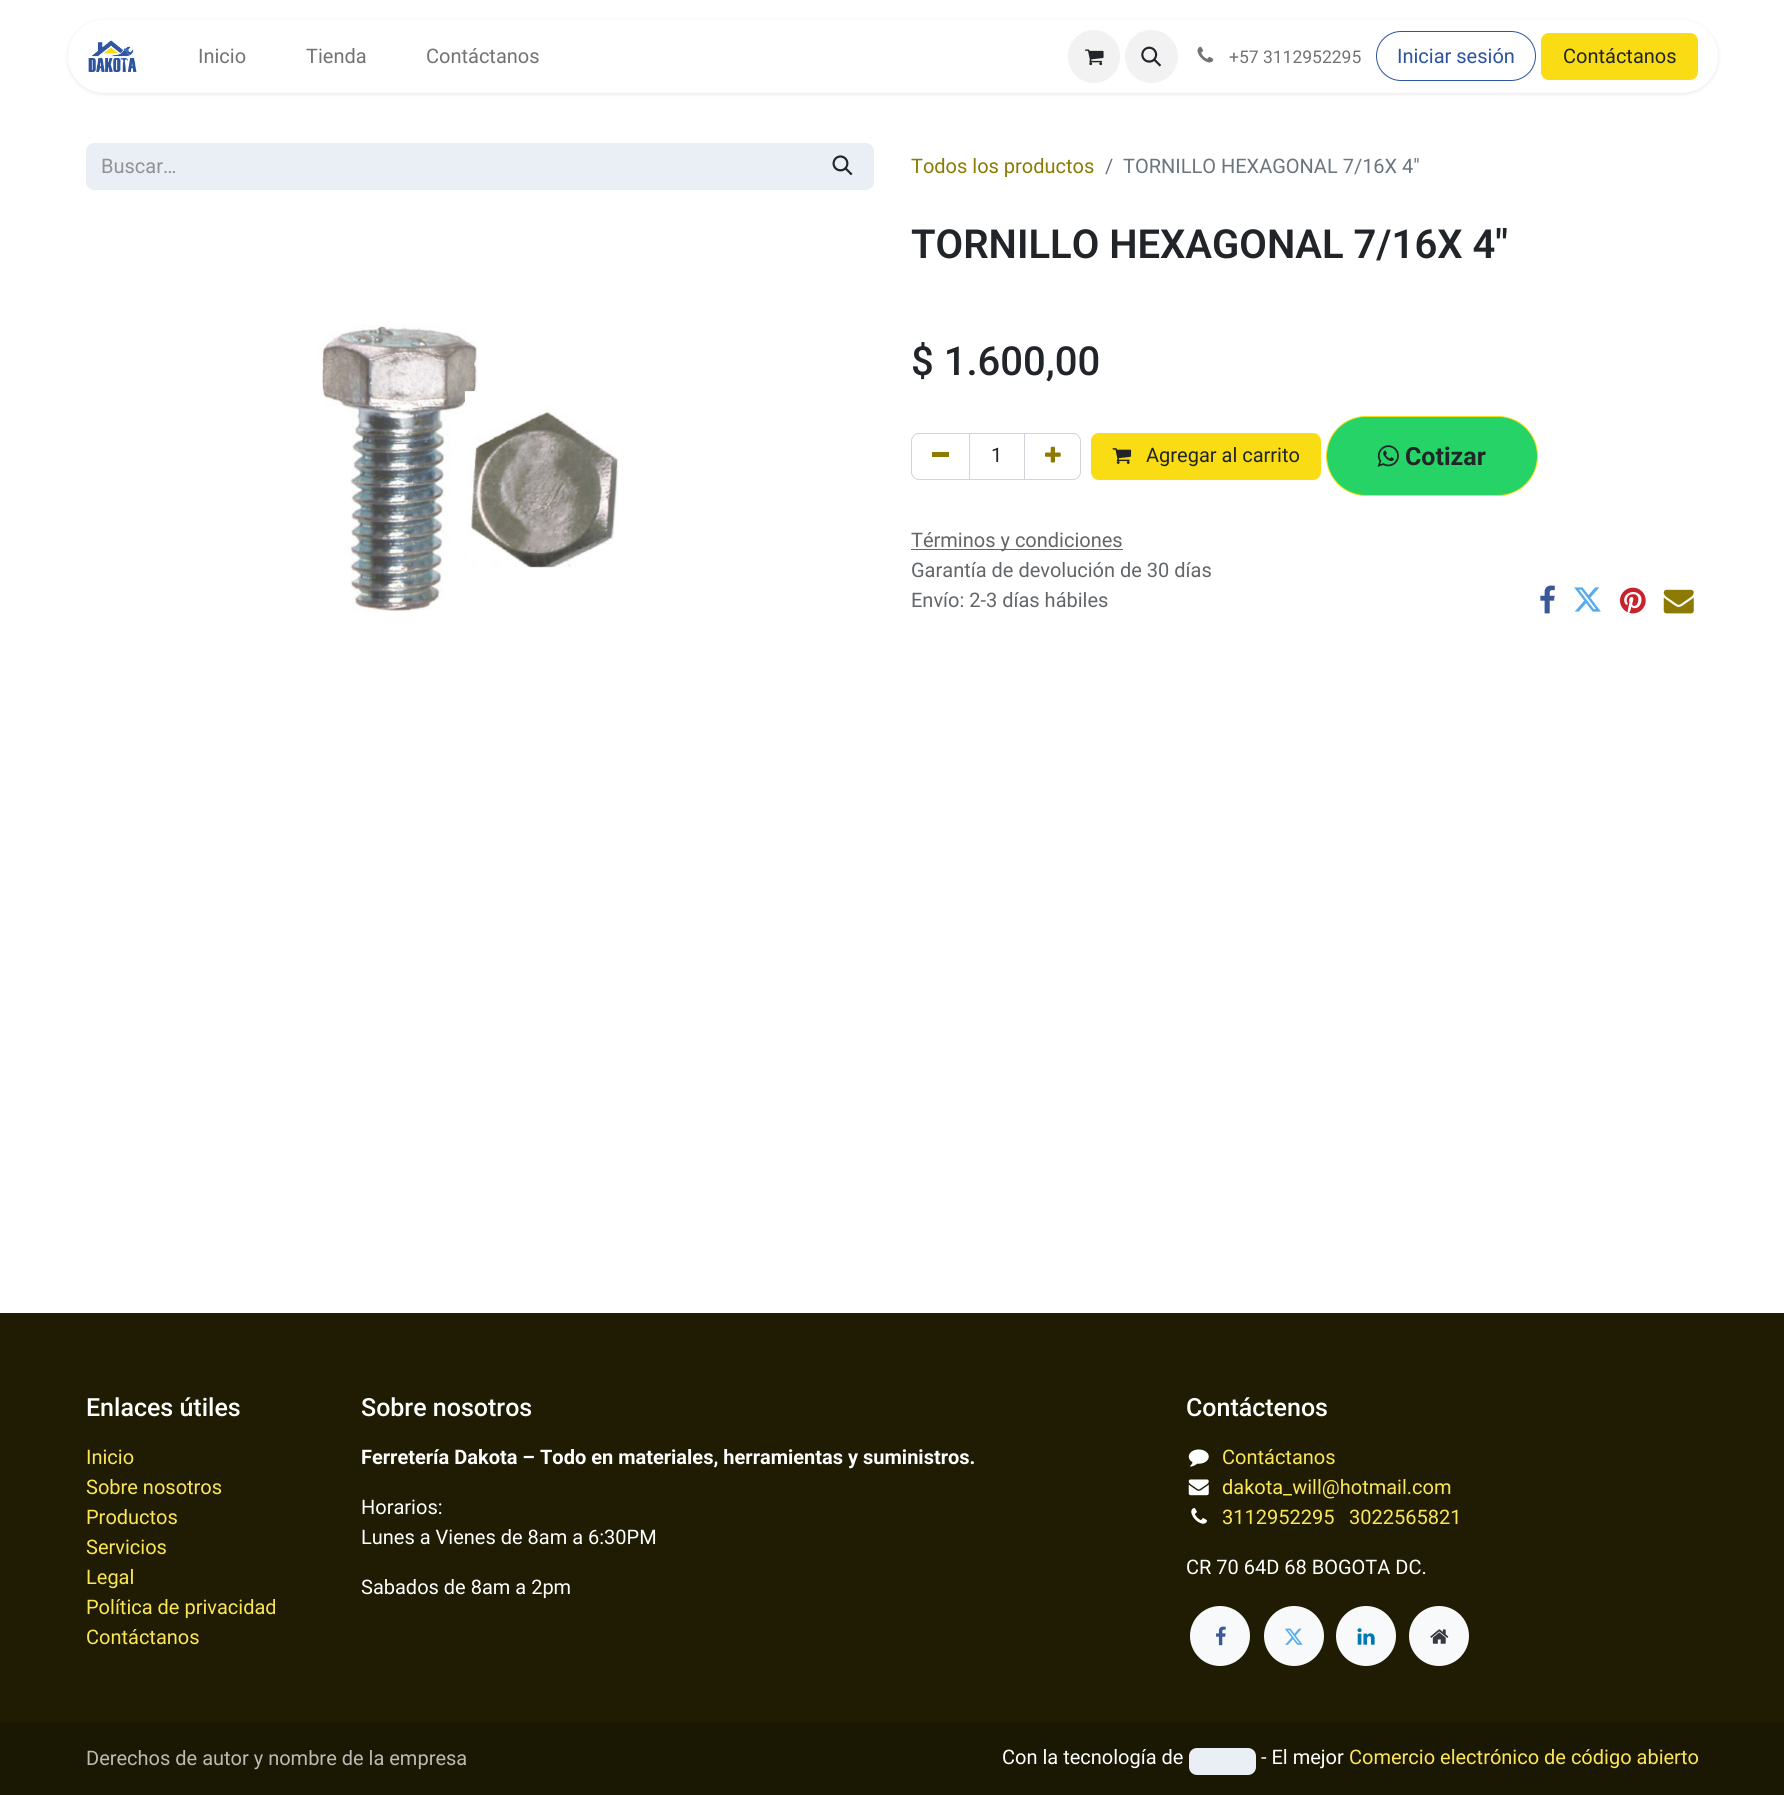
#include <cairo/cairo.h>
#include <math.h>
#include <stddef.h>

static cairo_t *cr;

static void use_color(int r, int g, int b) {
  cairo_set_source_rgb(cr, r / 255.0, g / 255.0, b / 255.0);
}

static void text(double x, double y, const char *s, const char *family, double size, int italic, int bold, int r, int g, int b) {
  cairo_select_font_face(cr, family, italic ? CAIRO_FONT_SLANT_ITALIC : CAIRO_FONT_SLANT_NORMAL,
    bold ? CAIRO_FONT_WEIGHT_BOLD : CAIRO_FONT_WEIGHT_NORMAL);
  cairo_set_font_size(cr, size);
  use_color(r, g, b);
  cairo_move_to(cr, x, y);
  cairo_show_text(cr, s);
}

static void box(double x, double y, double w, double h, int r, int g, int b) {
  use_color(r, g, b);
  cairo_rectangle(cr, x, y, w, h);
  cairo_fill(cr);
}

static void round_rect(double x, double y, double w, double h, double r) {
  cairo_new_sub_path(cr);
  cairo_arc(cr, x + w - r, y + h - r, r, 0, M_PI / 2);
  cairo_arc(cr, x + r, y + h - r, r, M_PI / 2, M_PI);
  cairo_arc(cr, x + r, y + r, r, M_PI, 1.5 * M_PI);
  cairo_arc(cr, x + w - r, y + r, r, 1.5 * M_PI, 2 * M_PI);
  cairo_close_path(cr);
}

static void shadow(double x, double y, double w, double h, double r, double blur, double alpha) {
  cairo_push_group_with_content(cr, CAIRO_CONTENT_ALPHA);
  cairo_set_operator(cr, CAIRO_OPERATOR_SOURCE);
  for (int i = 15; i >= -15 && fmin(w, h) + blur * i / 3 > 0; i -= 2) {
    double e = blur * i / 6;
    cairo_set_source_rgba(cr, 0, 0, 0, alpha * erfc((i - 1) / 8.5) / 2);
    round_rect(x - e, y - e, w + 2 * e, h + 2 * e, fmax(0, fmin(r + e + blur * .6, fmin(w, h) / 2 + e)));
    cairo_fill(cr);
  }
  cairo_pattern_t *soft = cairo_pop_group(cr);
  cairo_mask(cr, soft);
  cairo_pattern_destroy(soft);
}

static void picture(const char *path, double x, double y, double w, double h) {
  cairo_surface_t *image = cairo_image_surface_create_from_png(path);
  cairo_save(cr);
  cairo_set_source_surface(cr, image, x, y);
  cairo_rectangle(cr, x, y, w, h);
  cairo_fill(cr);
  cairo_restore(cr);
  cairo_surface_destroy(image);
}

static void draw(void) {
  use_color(255, 255, 255);
  cairo_paint(cr);
  use_color(0, 0, 0);
  shadow(68, 21, 1650, 73, 36.5, 2, 0.1);
  use_color(255, 255, 255);
  round_rect(68, 20, 1650, 73, 36.5);
  cairo_fill(cr);
  picture("img_01.png", 88, 40, 49, 32);
  use_color(242, 242, 242);
  round_rect(1068, 30, 52, 53, 26);
  cairo_fill(cr);
  picture("img_02.png", 1085, 49, 19, 17);
  cairo_arc(cr, 1151.5, 56.5, 26.5, 0, 2 * M_PI);
  cairo_fill(cr);
  picture("img_03.png", 1141, 46, 21, 21);
  picture("img_04.png", 1197, 46, 17, 17);
  round_rect(1376.5, 31.5, 159, 49, 24.5);
  use_color(45, 83, 159);
  cairo_set_line_width(cr, 1);
  cairo_stroke(cr);
  use_color(250, 220, 21);
  round_rect(1541.5, 33.5, 156, 46, 7.5);
  cairo_fill_preserve(cr);
  cairo_stroke(cr);
  use_color(234, 238, 245);
  cairo_new_path(cr);
  cairo_move_to(cr, 94, 143);
  cairo_line_to(cr, 813, 143);
  cairo_line_to(cr, 813, 190);
  cairo_line_to(cr, 94, 190);
  cairo_curve_to(cr, 89.5, 190, 86, 186.5, 86, 182);
  cairo_line_to(cr, 86, 151);
  cairo_curve_to(cr, 86, 146.5, 89.5, 143, 94, 143);
  cairo_close_path(cr);
  cairo_fill(cr);
  cairo_new_path(cr);
  cairo_move_to(cr, 811.5, 143.5);
  cairo_line_to(cr, 866, 143.5);
  cairo_curve_to(cr, 870, 143.5, 873.5, 147, 873.5, 151);
  cairo_line_to(cr, 873.5, 182);
  cairo_curve_to(cr, 873.5, 186, 870, 189.5, 866, 189.5);
  cairo_line_to(cr, 811.5, 189.5);
  cairo_close_path(cr);
  cairo_fill_preserve(cr);
  cairo_stroke(cr);
  picture("img_05.png", 832, 155, 21, 21);
  picture("img_06.png", 319, 324, 300, 288);
  cairo_rectangle(cr, 969.5, 433.5, 55, 46);
  use_color(206, 212, 218);
  cairo_stroke(cr);
  cairo_new_path(cr);
  cairo_move_to(cr, 919, 433.5);
  cairo_line_to(cr, 969.5, 433.5);
  cairo_line_to(cr, 969.5, 479.5);
  cairo_line_to(cr, 919, 479.5);
  cairo_curve_to(cr, 915, 479.5, 911.5, 476, 911.5, 472);
  cairo_line_to(cr, 911.5, 441);
  cairo_curve_to(cr, 911.5, 437, 915, 433.5, 919, 433.5);
  cairo_close_path(cr);
  cairo_stroke(cr);
  box(932, 452, 17, 5, 140, 122, 3);
  cairo_new_path(cr);
  cairo_move_to(cr, 1024.5, 433.5);
  cairo_line_to(cr, 1073, 433.5);
  cairo_curve_to(cr, 1077, 433.5, 1080.5, 437, 1080.5, 441);
  cairo_line_to(cr, 1080.5, 472);
  cairo_curve_to(cr, 1080.5, 476, 1077, 479.5, 1073, 479.5);
  cairo_line_to(cr, 1024.5, 479.5);
  cairo_close_path(cr);
  use_color(206, 212, 218);
  cairo_stroke(cr);
  picture("img_07.png", 1045, 446, 16, 17);
  use_color(250, 220, 21);
  round_rect(1091.5, 433.5, 229, 46, 7.5);
  cairo_fill_preserve(cr);
  cairo_stroke(cr);
  picture("img_08.png", 1112, 448, 20, 16);
  use_color(37, 211, 102);
  round_rect(1326.5, 416.5, 211, 79, 39.5);
  cairo_fill_preserve(cr);
  use_color(250, 220, 21);
  cairo_stroke(cr);
  picture("img_09.png", 1377, 445, 22, 22);
  box(911, 549, 212, 1, 100, 102, 105);
  picture("img_10.png", 1540, 585, 15, 29);
  picture("img_11.png", 1574, 587, 27, 25);
  picture("img_12.png", 1620, 587, 26, 27);
  picture("img_13.png", 1663, 589, 31, 25);
  box(0, 1313, 1784, 410, 31, 28, 3);
  picture("img_14.png", 1188, 1449, 21, 18);
  picture("img_15.png", 1188, 1479, 21, 17);
  picture("img_16.png", 1191, 1508, 16, 16);
  use_color(248, 249, 250);
  cairo_arc(cr, 1220, 1636, 30, 0, 2 * M_PI);
  cairo_fill(cr);
  picture("img_17.png", 1216, 1626, 10, 20);
  cairo_arc(cr, 1294, 1636, 30, 0, 2 * M_PI);
  cairo_fill(cr);
  picture("img_18.png", 1285, 1628, 18, 17);
  cairo_arc(cr, 1366, 1636, 30, 0, 2 * M_PI);
  cairo_fill(cr);
  picture("img_19.png", 1357, 1628, 18, 17);
  cairo_arc(cr, 1439, 1636, 30, 0, 2 * M_PI);
  cairo_fill(cr);
  picture("img_20.png", 1430, 1629, 19, 15);
  box(0, 1723, 1784, 72, 26, 24, 3);
  use_color(234, 238, 245);
  round_rect(1189, 1748, 67, 27, 8);
  cairo_fill(cr);
  text(198, 63, "Inicio", "Roboto", 20, 0, 0, 115, 115, 115);
  text(306, 63, "Tienda", "Roboto", 20, 0, 0, 115, 115, 115);
  text(426, 63, "Contáctanos", "Roboto", 20, 0, 0, 115, 115, 115);
  text(1229, 63, "+57 3112952295", "Roboto", 17.5, 0, 0, 115, 115, 115);
  text(1397, 63, "Iniciar sesión", "Roboto", 20, 0, 0, 45, 83, 159);
  text(1563, 63, "Contáctanos", "Roboto", 20, 0, 0, 33, 37, 41);
  text(101, 173, "Buscar…", "Roboto", 20, 0, 0, 144, 146, 148);
  text(911, 173, "Todos los productos", "Roboto", 20, 0, 0, 140, 122, 3);
  text(1105, 173, "/", "Roboto", 20, 0, 0, 108, 117, 125);
  text(1123, 173, "TORNILLO HEXAGONAL 7/16X 4\"", "Roboto", 20, 0, 0, 108, 117, 125);
  text(911, 258, "TORNILLO HEXAGONAL 7/16X 4\"", "Roboto SemiBold", 40, 0, 0, 33, 37, 41);
  text(911, 375, "$ 1.600,00", "Roboto Medium", 40, 0, 0, 33, 37, 41);
  text(991, 462, "1", "Roboto", 20, 0, 0, 33, 37, 41);
  text(1146, 462, "Agregar al carrito", "Roboto", 20, 0, 0, 33, 37, 41);
  text(1405, 465, "Cotizar", "Roboto", 25, 0, 1, 33, 37, 41);
  text(911, 547, "Términos y condiciones", "Roboto", 20, 0, 0, 99, 102, 105);
  text(911, 577, "Garantía de devolución de 30 días", "Roboto", 20, 0, 0, 99, 102, 105);
  text(911, 607, "Envío: 2-3 días hábiles", "Roboto", 20, 0, 0, 99, 102, 105);
  text(86, 1416, "Enlaces útiles", "Roboto Medium", 25, 0, 0, 255, 255, 255);
  text(86, 1464, "Inicio", "Roboto", 20, 0, 0, 251, 230, 86);
  text(86, 1494, "Sobre nosotros", "Roboto", 20, 0, 0, 251, 230, 86);
  text(86, 1524, "Productos", "Roboto", 20, 0, 0, 251, 230, 86);
  text(86, 1554, "Servicios", "Roboto", 20, 0, 0, 251, 230, 86);
  text(86, 1584, "Legal", "Roboto", 20, 0, 0, 251, 230, 86);
  text(86, 1614, "Política de privacidad", "Roboto", 20, 0, 0, 251, 230, 86);
  text(86, 1644, "Contáctanos", "Roboto", 20, 0, 0, 251, 230, 86);
  text(361, 1416, "Sobre nosotros", "Roboto Medium", 25, 0, 0, 255, 255, 255);
  text(361, 1464, "Ferretería Dakota – Todo en materiales, herramientas y suministros.", "Roboto", 20, 0, 1, 255, 255, 255);
  text(361, 1514, "Horarios:", "Roboto", 20, 0, 0, 255, 255, 255);
  text(361, 1544, "Lunes a Vienes de 8am a 6:30PM", "Roboto", 20, 0, 0, 255, 255, 255);
  text(361, 1594, "Sabados de 8am a 2pm", "Roboto", 20, 0, 0, 255, 255, 255);
  text(1186, 1416, "Contáctenos", "Roboto Medium", 25, 0, 0, 255, 255, 255);
  text(1222, 1464, "Contáctanos", "Roboto", 20, 0, 0, 251, 230, 86);
  text(1222, 1494, "dakota_will@hotmail.com", "Roboto", 20, 0, 0, 251, 230, 86);
  text(1222, 1524, "3112952295", "Roboto", 20, 0, 0, 251, 230, 86);
  text(1349, 1524, "3022565821", "Roboto", 20, 0, 0, 251, 230, 86);
  text(1186, 1574, "CR 70 64D 68 BOGOTA DC.", "Roboto", 20, 0, 0, 255, 255, 255);
  text(86, 1765, "Derechos de autor y nombre de la empresa", "Roboto", 20, 0, 0, 186, 186, 179);
  text(1002, 1764, "Con la tecnología de", "Roboto", 20, 0, 0, 255, 255, 255);
  text(1261, 1764, "- El mejor", "Roboto", 20, 0, 0, 255, 255, 255);
  text(1349, 1764, "Comercio electrónico de código abierto", "Roboto", 20, 0, 0, 251, 230, 86);
}

int main(void) {
  cairo_surface_t *surface = cairo_image_surface_create(CAIRO_FORMAT_RGB24, 1784, 1795);
  cr = cairo_create(surface);
  cairo_font_options_t *options = cairo_font_options_create();
  cairo_font_options_set_hint_metrics(options, CAIRO_HINT_METRICS_OFF);
  cairo_font_options_set_hint_style(options, CAIRO_HINT_STYLE_NONE);
  cairo_set_font_options(cr, options);
  cairo_set_miter_limit(cr, 4);
  draw();
  cairo_surface_write_to_png(surface, "out.png");
  cairo_font_options_destroy(options);
  cairo_destroy(cr);
  cairo_surface_destroy(surface);
  return 0;
}
